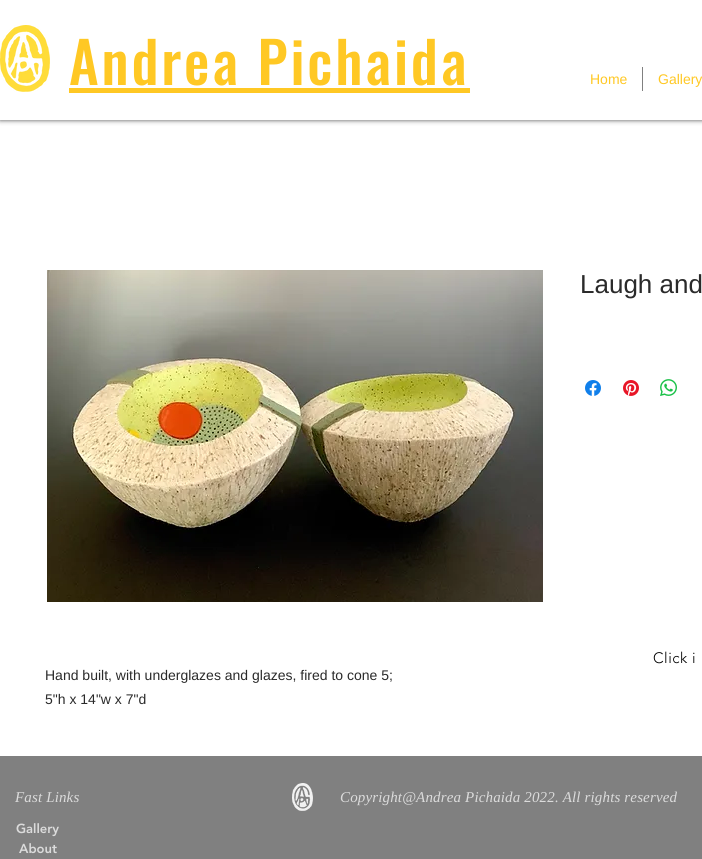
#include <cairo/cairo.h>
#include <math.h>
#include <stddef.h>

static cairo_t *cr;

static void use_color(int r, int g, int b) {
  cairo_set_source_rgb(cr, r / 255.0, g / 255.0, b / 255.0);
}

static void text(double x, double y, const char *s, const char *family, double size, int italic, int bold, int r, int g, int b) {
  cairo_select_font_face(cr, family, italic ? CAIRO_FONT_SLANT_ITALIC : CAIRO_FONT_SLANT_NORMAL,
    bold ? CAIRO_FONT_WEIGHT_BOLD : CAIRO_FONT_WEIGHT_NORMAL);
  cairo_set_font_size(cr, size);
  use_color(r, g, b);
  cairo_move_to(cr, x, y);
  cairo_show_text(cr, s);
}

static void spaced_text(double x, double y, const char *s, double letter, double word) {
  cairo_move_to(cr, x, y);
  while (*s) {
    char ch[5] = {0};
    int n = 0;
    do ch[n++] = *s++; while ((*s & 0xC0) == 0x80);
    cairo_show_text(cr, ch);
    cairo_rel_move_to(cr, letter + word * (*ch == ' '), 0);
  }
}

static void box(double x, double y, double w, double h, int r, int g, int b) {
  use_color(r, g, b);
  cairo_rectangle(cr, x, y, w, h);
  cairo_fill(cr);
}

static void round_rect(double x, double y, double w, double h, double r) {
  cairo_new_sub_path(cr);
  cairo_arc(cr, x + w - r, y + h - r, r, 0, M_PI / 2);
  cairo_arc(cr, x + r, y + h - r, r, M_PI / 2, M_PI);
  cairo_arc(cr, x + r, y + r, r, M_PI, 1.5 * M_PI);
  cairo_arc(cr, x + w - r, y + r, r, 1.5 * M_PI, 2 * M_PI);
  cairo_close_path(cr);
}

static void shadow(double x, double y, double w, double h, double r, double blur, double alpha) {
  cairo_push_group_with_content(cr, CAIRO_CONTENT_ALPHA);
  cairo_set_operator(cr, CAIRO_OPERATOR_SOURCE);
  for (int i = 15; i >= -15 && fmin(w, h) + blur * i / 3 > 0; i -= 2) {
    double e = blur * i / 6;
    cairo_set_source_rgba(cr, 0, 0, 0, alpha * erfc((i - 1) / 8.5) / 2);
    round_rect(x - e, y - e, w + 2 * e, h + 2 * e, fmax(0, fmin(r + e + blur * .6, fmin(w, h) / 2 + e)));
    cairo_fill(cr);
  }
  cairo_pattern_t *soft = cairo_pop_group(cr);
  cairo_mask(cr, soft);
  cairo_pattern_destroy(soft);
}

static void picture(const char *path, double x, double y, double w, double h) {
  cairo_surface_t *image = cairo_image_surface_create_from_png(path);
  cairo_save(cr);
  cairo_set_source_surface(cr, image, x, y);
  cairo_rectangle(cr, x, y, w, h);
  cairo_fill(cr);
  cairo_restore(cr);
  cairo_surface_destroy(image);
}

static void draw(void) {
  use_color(255, 255, 255);
  cairo_paint(cr);
  use_color(0, 0, 0);
  shadow(0, 0, 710, 120, 0, 2.5, 0.7);
  box(0, 0, 702, 120, 255, 255, 255);
  picture("img_01.png", 0, 25, 50, 67);
  box(69, 88, 401, 5, 255, 200, 36);
  box(642, 67, 1, 24, 128, 128, 128);
  picture("img_02.png", 585, 380, 16, 16);
  picture("img_03.png", 623, 380, 16, 16);
  picture("img_04.png", 660, 379, 17, 17);
  picture("img_05.png", 47, 270, 496, 332);
  box(0, 756, 702, 103, 128, 128, 128);
  picture("img_06.png", 292, 783, 21, 28);
  cairo_select_font_face(cr, "Oswald Medium", CAIRO_FONT_SLANT_NORMAL, CAIRO_FONT_WEIGHT_NORMAL);
  cairo_set_font_size(cr, 57);
  use_color(255, 200, 36);
  spaced_text(69, 85, "Andrea Pichaida", 2.8, 0);
  text(590, 84, "Home", "Liberation Sans", 14, 0, 0, 255, 200, 36);
  text(658, 84, "Gallery", "Liberation Sans", 14, 0, 0, 255, 200, 36);
  text(580, 293, "Laugh and", "Liberation Sans", 26, 0, 0, 42, 42, 42);
  text(45, 680, "Hand built, with underglazes and glazes, fired to cone 5;", "Liberation Sans", 14, 0, 0, 42, 42, 42);
  text(45, 704, "5\"h x 14\"w x 7\"d", "Liberation Sans", 14, 0, 0, 42, 42, 42);
  cairo_select_font_face(cr, "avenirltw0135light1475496 Light", CAIRO_FONT_SLANT_NORMAL, CAIRO_FONT_WEIGHT_NORMAL);
  cairo_set_font_size(cr, 15);
  use_color(0, 0, 0);
  spaced_text(653, 663, "Click i", 0.5, 0);
  cairo_select_font_face(cr, "Liberation Serif", CAIRO_FONT_SLANT_ITALIC, CAIRO_FONT_WEIGHT_NORMAL);
  use_color(219, 219, 219);
  spaced_text(15, 802, "Fast Links", 0.15, 0);
  spaced_text(340, 802, "Copyright@Andrea Pichaida 2022. All rights reserved", 0.15, 0);
  text(16, 833, "Gallery", "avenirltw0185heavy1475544 Black", 13, 0, 0, 219, 219, 219);
  text(19, 853, "About", "avenirltw0185heavy1475544 Black", 13, 0, 0, 219, 219, 219);
}

int main(void) {
  cairo_surface_t *surface = cairo_image_surface_create(CAIRO_FORMAT_RGB24, 702, 859);
  cr = cairo_create(surface);
  cairo_font_options_t *options = cairo_font_options_create();
  cairo_font_options_set_hint_metrics(options, CAIRO_HINT_METRICS_OFF);
  cairo_font_options_set_hint_style(options, CAIRO_HINT_STYLE_NONE);
  cairo_set_font_options(cr, options);
  cairo_set_miter_limit(cr, 4);
  draw();
  cairo_surface_write_to_png(surface, "out.png");
  cairo_font_options_destroy(options);
  cairo_destroy(cr);
  cairo_surface_destroy(surface);
  return 0;
}
